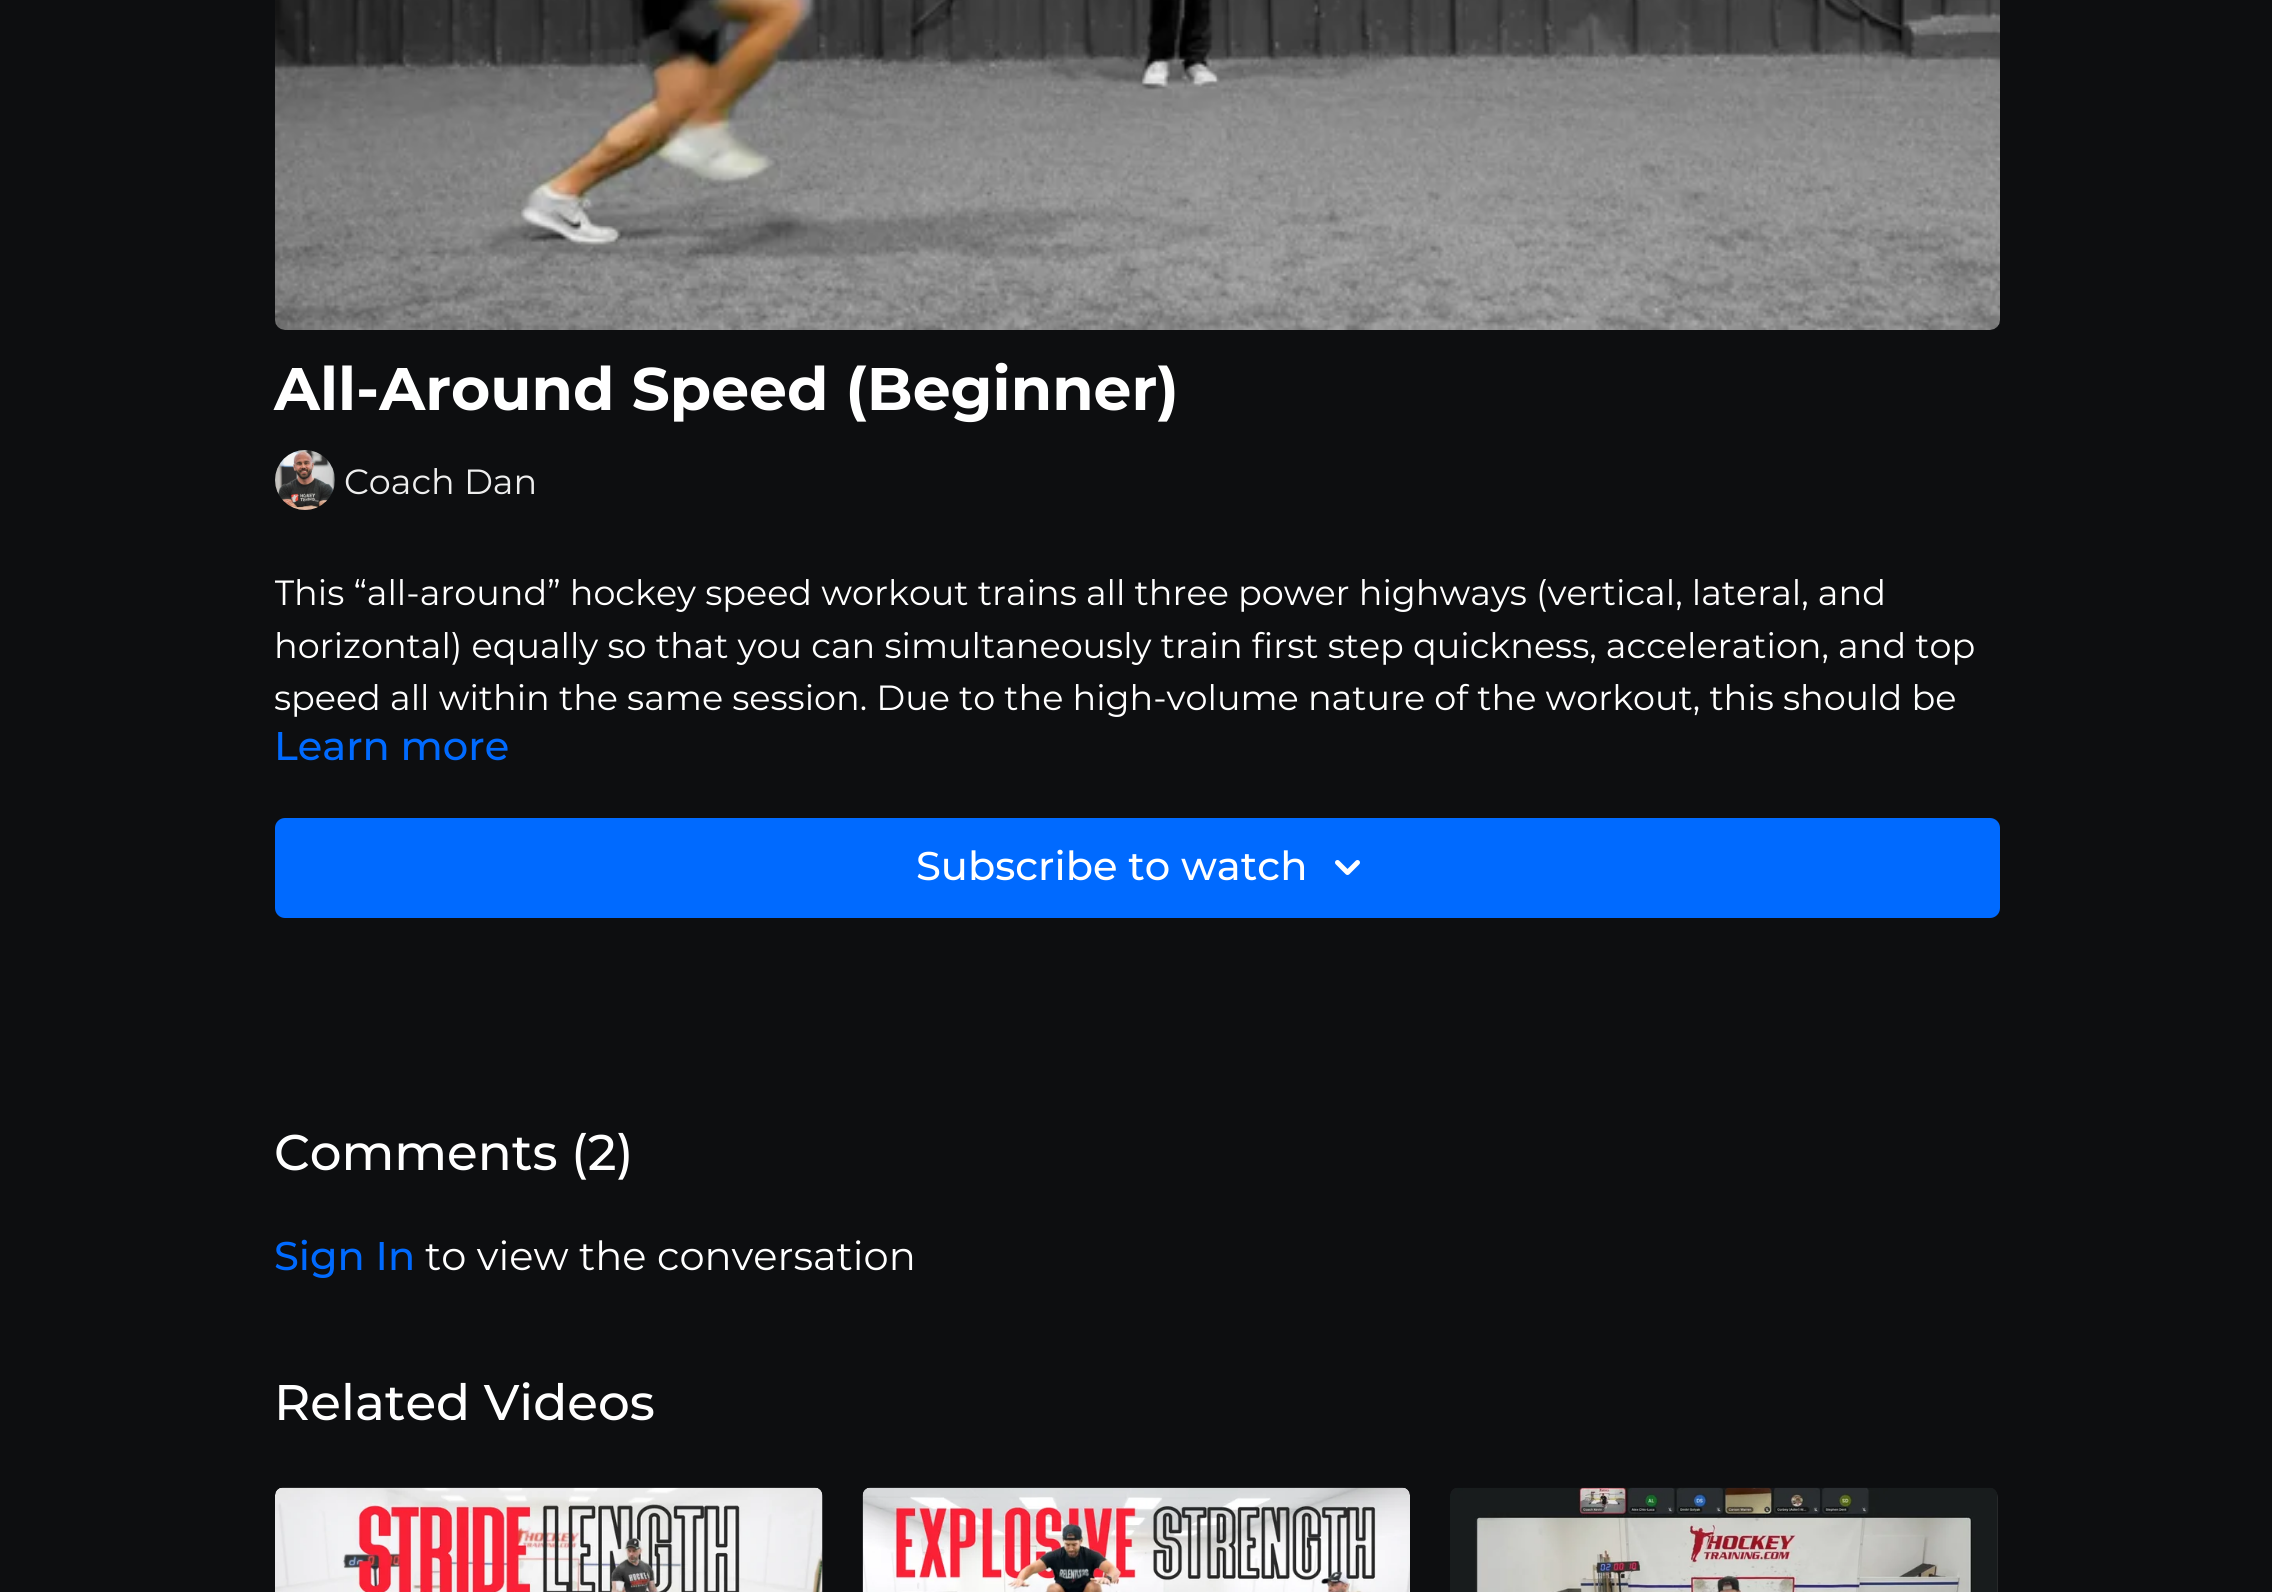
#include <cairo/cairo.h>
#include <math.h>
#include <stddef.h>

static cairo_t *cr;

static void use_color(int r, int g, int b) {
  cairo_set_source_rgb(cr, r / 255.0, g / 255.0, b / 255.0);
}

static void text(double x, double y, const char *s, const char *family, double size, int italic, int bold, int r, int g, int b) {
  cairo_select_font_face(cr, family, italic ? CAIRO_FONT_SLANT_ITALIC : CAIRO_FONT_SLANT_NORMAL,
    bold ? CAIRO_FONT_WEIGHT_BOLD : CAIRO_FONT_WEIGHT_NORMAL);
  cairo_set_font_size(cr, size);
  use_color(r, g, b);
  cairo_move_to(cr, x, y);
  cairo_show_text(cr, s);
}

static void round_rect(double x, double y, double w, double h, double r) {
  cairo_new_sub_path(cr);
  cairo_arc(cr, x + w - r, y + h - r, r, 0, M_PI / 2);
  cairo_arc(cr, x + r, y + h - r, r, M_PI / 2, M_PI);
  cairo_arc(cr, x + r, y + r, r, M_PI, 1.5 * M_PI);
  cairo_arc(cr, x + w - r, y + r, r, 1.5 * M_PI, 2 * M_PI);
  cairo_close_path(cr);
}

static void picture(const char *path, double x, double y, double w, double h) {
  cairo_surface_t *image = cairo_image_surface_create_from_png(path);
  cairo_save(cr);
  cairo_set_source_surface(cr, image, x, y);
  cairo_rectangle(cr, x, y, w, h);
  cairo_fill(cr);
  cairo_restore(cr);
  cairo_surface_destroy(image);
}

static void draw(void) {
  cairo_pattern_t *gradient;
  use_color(13, 14, 16);
  cairo_paint(cr);
  picture("img_01.png", 275, 0, 1725, 330);
  picture("img_02.png", 275, 450, 60, 60);
  use_color(0, 106, 255);
  round_rect(275, 818, 1725, 100, 10);
  cairo_fill(cr);
  picture("img_03.png", 1335, 860, 25, 15);
  gradient = cairo_pattern_create_linear(275, 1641, 823, 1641);
  cairo_pattern_add_color_stop_rgba(gradient, 0.08, 0.173, 0.176, 0.184, 1);
  cairo_pattern_add_color_stop_rgba(gradient, 0.18, 0.165, 0.169, 0.176, 1);
  cairo_pattern_add_color_stop_rgba(gradient, 0.33, 0.157, 0.161, 0.165, 1);
  cairo_set_source(cr, gradient);
  cairo_pattern_destroy(gradient);
  round_rect(275, 1488, 548, 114, 10);
  cairo_fill(cr);
  picture("img_04.png", 275, 1487, 548, 105);
  picture("img_05.png", 862, 1487, 548, 105);
  gradient = cairo_pattern_create_linear(1450, 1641, 1998, 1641);
  cairo_pattern_add_color_stop_rgba(gradient, 0.08, 0.173, 0.176, 0.184, 1);
  cairo_pattern_add_color_stop_rgba(gradient, 0.18, 0.165, 0.169, 0.176, 1);
  cairo_pattern_add_color_stop_rgba(gradient, 0.33, 0.157, 0.161, 0.165, 1);
  cairo_set_source(cr, gradient);
  cairo_pattern_destroy(gradient);
  round_rect(1450, 1488, 548, 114, 10);
  cairo_fill(cr);
  picture("img_06.png", 1450, 1487, 547, 105);
  text(274, 410, "All-Around Speed (Beginner)", "Montserrat", 60, 0, 1, 255, 255, 255);
  text(344, 494, "Coach Dan", "Montserrat", 35, 0, 0, 238, 238, 238);
  cairo_save(cr);
  cairo_rectangle(cr, 275, 568, 1725, 150);
  cairo_clip(cr);
  text(274, 605, "This “all-around” hockey speed workout trains all three power highways (vertical, lateral, and", "Montserrat", 35, 0, 0, 255, 255, 255);
  cairo_restore(cr);
  text(274, 658, "horizontal) equally so that you can simultaneously train first step quickness, acceleration, and top", "Montserrat", 35, 0, 0, 255, 255, 255);
  text(274, 710, "speed all within the same session. Due to the high-volume nature of the workout, this should be", "Montserrat", 35, 0, 0, 255, 255, 255);
  text(274, 760, "Learn more", "Montserrat Medium", 40, 0, 0, 0, 106, 255);
  text(916, 880, "Subscribe to watch", "Montserrat Medium", 40, 0, 0, 255, 255, 255);
  text(274, 1170, "Comments (2)", "Montserrat Medium", 50, 0, 0, 255, 255, 255);
  text(274, 1270, "Sign In", "Montserrat Medium", 40, 0, 0, 0, 106, 255);
  text(425, 1270, "to view the conversation", "Montserrat", 40, 0, 0, 255, 255, 255);
  text(274, 1420, "Related Videos", "Montserrat Medium", 50, 0, 0, 255, 255, 255);
}

int main(void) {
  cairo_surface_t *surface = cairo_image_surface_create(CAIRO_FORMAT_RGB24, 2272, 1592);
  cr = cairo_create(surface);
  cairo_font_options_t *options = cairo_font_options_create();
  cairo_font_options_set_hint_metrics(options, CAIRO_HINT_METRICS_OFF);
  cairo_font_options_set_hint_style(options, CAIRO_HINT_STYLE_NONE);
  cairo_set_font_options(cr, options);
  cairo_set_miter_limit(cr, 4);
  draw();
  cairo_surface_write_to_png(surface, "out.png");
  cairo_font_options_destroy(options);
  cairo_destroy(cr);
  cairo_surface_destroy(surface);
  return 0;
}
